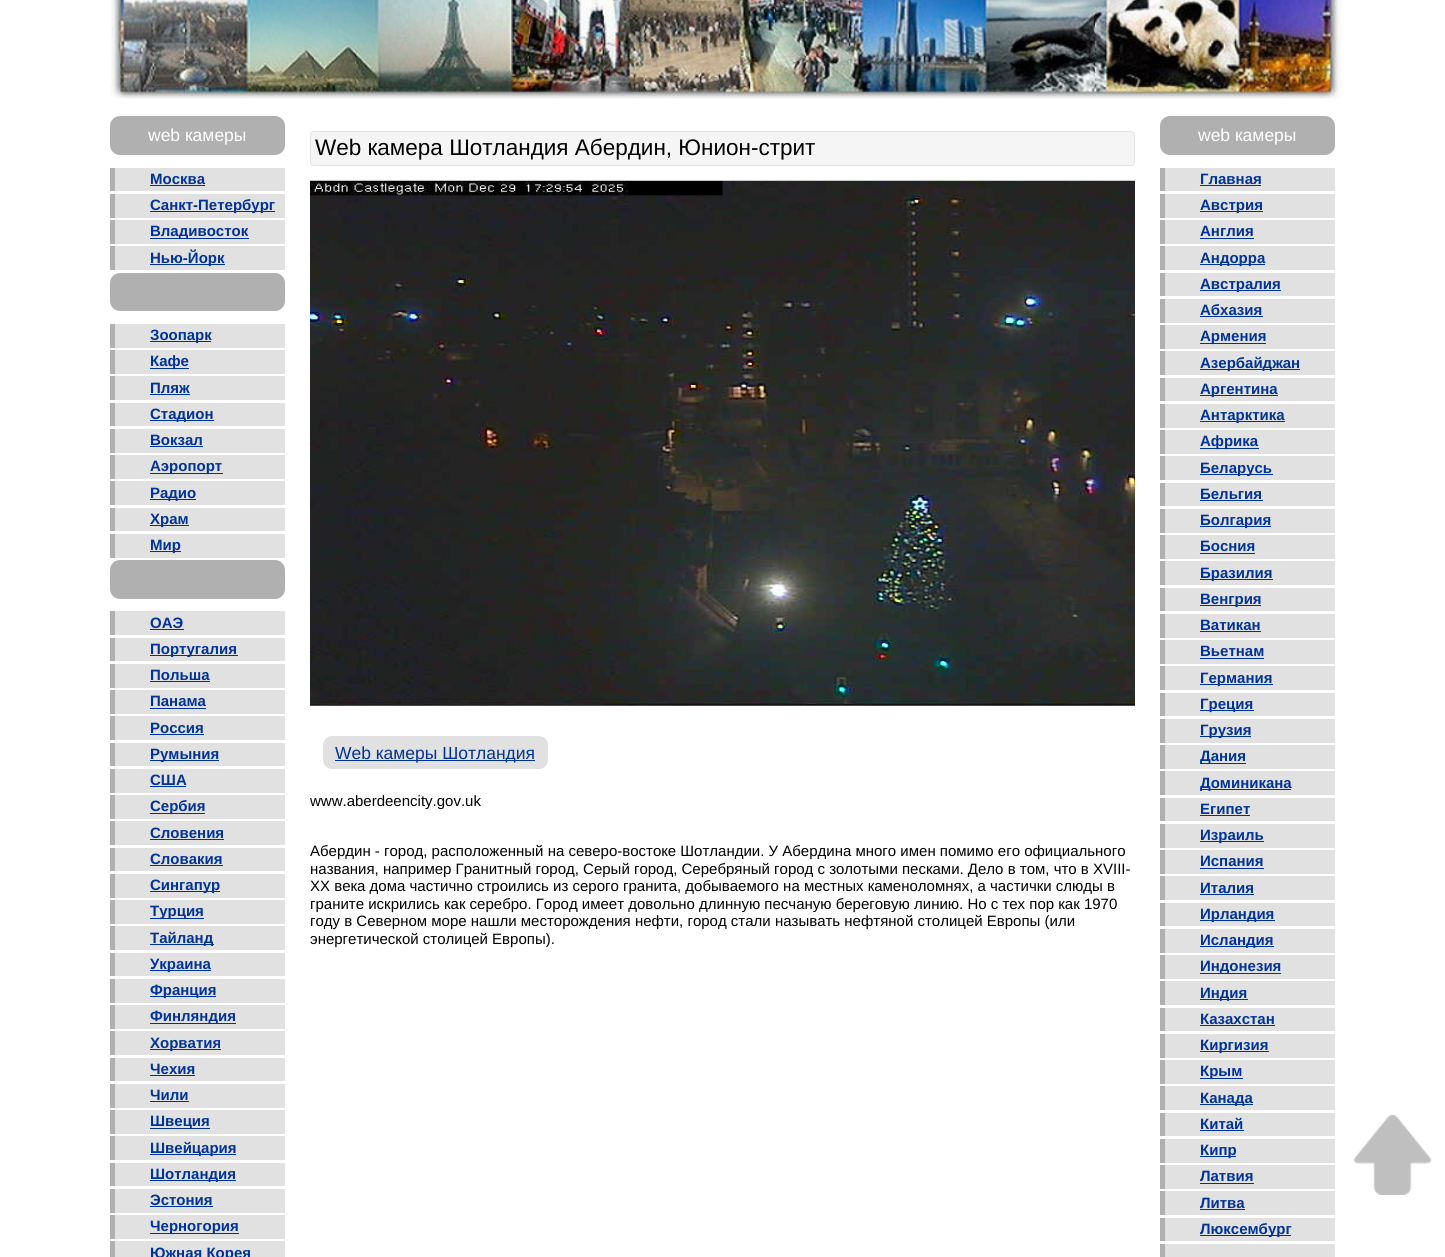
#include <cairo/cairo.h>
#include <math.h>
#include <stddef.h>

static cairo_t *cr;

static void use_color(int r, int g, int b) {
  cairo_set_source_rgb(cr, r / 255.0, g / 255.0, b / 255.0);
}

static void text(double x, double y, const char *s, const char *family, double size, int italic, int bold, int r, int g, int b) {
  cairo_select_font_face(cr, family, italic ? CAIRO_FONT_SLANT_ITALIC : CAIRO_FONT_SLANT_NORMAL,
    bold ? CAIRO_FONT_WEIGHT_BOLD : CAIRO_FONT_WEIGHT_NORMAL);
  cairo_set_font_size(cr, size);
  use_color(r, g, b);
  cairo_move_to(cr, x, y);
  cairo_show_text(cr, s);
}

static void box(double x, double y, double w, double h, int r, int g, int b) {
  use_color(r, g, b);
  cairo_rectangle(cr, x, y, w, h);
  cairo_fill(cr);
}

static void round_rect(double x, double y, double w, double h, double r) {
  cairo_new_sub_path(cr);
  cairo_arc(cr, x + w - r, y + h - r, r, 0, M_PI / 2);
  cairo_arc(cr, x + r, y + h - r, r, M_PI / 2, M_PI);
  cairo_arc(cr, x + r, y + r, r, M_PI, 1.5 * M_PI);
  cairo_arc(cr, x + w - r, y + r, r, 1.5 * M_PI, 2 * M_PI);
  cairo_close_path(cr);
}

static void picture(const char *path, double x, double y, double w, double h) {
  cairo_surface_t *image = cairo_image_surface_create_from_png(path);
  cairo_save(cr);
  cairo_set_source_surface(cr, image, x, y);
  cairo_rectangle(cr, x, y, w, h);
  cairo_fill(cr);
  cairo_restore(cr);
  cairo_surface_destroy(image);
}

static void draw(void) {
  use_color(255, 255, 255);
  cairo_paint(cr);
  picture("img_01.png", 110, 0, 1231, 99);
  use_color(176, 176, 176);
  round_rect(110, 116, 175, 39, 10);
  cairo_fill(cr);
  box(115, 168, 170, 23, 225, 225, 225);
  box(110, 168, 5, 23, 176, 176, 176);
  box(150, 185, 55, 1, 0, 51, 153);
  box(115, 194, 170, 24, 225, 225, 225);
  box(110, 194, 5, 24, 176, 176, 176);
  box(150, 211, 125, 1, 0, 51, 153);
  box(115, 220, 170, 24, 225, 225, 225);
  box(110, 220, 5, 24, 176, 176, 176);
  box(150, 238, 99, 1, 0, 51, 153);
  box(115, 246, 170, 24, 225, 225, 225);
  box(110, 246, 5, 24, 176, 176, 176);
  box(150, 264, 75, 1, 0, 51, 153);
  use_color(176, 176, 176);
  round_rect(110, 273, 175, 38, 10);
  cairo_fill(cr);
  box(115, 324, 170, 24, 225, 225, 225);
  box(110, 324, 5, 24, 176, 176, 176);
  box(150, 341, 61, 1, 0, 51, 153);
  box(115, 350, 170, 24, 225, 225, 225);
  box(110, 350, 5, 24, 176, 176, 176);
  box(150, 368, 39, 1, 0, 51, 153);
  box(115, 376, 170, 24, 225, 225, 225);
  box(110, 376, 5, 24, 176, 176, 176);
  box(150, 394, 40, 1, 0, 51, 153);
  box(115, 403, 170, 23, 225, 225, 225);
  box(110, 403, 5, 23, 176, 176, 176);
  box(150, 420, 64, 1, 0, 51, 153);
  box(115, 429, 170, 24, 225, 225, 225);
  box(110, 429, 5, 24, 176, 176, 176);
  box(150, 446, 53, 1, 0, 51, 153);
  box(115, 455, 170, 24, 225, 225, 225);
  box(110, 455, 5, 24, 176, 176, 176);
  box(150, 473, 73, 1, 0, 51, 153);
  box(115, 481, 170, 24, 225, 225, 225);
  box(110, 481, 5, 24, 176, 176, 176);
  box(150, 499, 46, 1, 0, 51, 153);
  box(115, 508, 170, 23, 225, 225, 225);
  box(110, 508, 5, 23, 176, 176, 176);
  box(150, 525, 39, 1, 0, 51, 153);
  box(115, 534, 170, 24, 225, 225, 225);
  box(110, 534, 5, 24, 176, 176, 176);
  box(150, 551, 31, 1, 0, 51, 153);
  use_color(176, 176, 176);
  round_rect(110, 560, 175, 39, 10);
  cairo_fill(cr);
  box(115, 611, 170, 24, 225, 225, 225);
  box(110, 611, 5, 24, 176, 176, 176);
  box(150, 629, 34, 1, 0, 51, 153);
  box(115, 638, 170, 23, 225, 225, 225);
  box(110, 638, 5, 23, 176, 176, 176);
  box(150, 655, 88, 1, 0, 51, 153);
  box(115, 664, 170, 24, 225, 225, 225);
  box(110, 664, 5, 24, 176, 176, 176);
  box(150, 681, 60, 1, 0, 51, 153);
  box(115, 690, 170, 24, 225, 225, 225);
  box(110, 690, 5, 24, 176, 176, 176);
  box(150, 708, 56, 1, 0, 51, 153);
  box(115, 716, 170, 24, 225, 225, 225);
  box(110, 716, 5, 24, 176, 176, 176);
  box(150, 734, 54, 1, 0, 51, 153);
  box(115, 743, 170, 23, 225, 225, 225);
  box(110, 743, 5, 23, 176, 176, 176);
  box(150, 760, 69, 1, 0, 51, 153);
  box(115, 769, 170, 24, 225, 225, 225);
  box(110, 769, 5, 24, 176, 176, 176);
  box(150, 786, 36, 1, 0, 51, 153);
  box(115, 795, 170, 24, 225, 225, 225);
  box(110, 795, 5, 24, 176, 176, 176);
  box(150, 813, 55, 1, 0, 51, 153);
  box(115, 821, 170, 24, 225, 225, 225);
  box(110, 821, 5, 24, 176, 176, 176);
  box(150, 839, 74, 1, 0, 51, 153);
  box(115, 848, 170, 23, 225, 225, 225);
  box(110, 848, 5, 23, 176, 176, 176);
  box(150, 865, 73, 1, 0, 51, 153);
  box(115, 874, 170, 24, 225, 225, 225);
  box(110, 874, 5, 24, 176, 176, 176);
  box(150, 891, 70, 1, 0, 51, 153);
  box(115, 900, 170, 24, 225, 225, 225);
  box(110, 900, 5, 24, 176, 176, 176);
  box(150, 918, 54, 1, 0, 51, 153);
  box(115, 926, 170, 24, 225, 225, 225);
  box(110, 926, 5, 24, 176, 176, 176);
  box(150, 944, 64, 1, 0, 51, 153);
  box(115, 953, 170, 23, 225, 225, 225);
  box(110, 953, 5, 23, 176, 176, 176);
  box(150, 970, 61, 1, 0, 51, 153);
  box(115, 979, 170, 24, 225, 225, 225);
  box(110, 979, 5, 24, 176, 176, 176);
  box(150, 996, 66, 1, 0, 51, 153);
  box(115, 1005, 170, 24, 225, 225, 225);
  box(110, 1005, 5, 24, 176, 176, 176);
  box(150, 1023, 86, 1, 0, 51, 153);
  box(115, 1031, 170, 24, 225, 225, 225);
  box(110, 1031, 5, 24, 176, 176, 176);
  box(150, 1049, 71, 1, 0, 51, 153);
  box(115, 1058, 170, 23, 225, 225, 225);
  box(110, 1058, 5, 23, 176, 176, 176);
  box(150, 1075, 45, 1, 0, 51, 153);
  box(115, 1084, 170, 24, 225, 225, 225);
  box(110, 1084, 5, 24, 176, 176, 176);
  box(150, 1101, 39, 1, 0, 51, 153);
  box(115, 1110, 170, 24, 225, 225, 225);
  box(110, 1110, 5, 24, 176, 176, 176);
  box(150, 1128, 60, 1, 0, 51, 153);
  box(115, 1136, 170, 24, 225, 225, 225);
  box(110, 1136, 5, 24, 176, 176, 176);
  box(150, 1154, 86, 1, 0, 51, 153);
  box(115, 1163, 170, 23, 225, 225, 225);
  box(110, 1163, 5, 23, 176, 176, 176);
  box(150, 1180, 86, 1, 0, 51, 153);
  box(115, 1189, 170, 24, 225, 225, 225);
  box(110, 1189, 5, 24, 176, 176, 176);
  box(150, 1206, 63, 1, 0, 51, 153);
  box(115, 1215, 170, 24, 225, 225, 225);
  box(110, 1215, 5, 24, 176, 176, 176);
  box(150, 1233, 89, 1, 0, 51, 153);
  box(115, 1241, 170, 16, 225, 225, 225);
  box(110, 1241, 5, 16, 176, 176, 176);
  use_color(245, 245, 245);
  round_rect(310.5, 131.5, 824, 34, 3.5);
  cairo_fill_preserve(cr);
  use_color(227, 227, 227);
  cairo_set_line_width(cr, 1);
  cairo_stroke(cr);
  picture("img_02.png", 310, 180, 825, 526);
  use_color(225, 225, 225);
  round_rect(323, 736, 225, 33, 9);
  cairo_fill(cr);
  box(335, 760, 200, 1, 0, 51, 153);
  use_color(176, 176, 176);
  round_rect(1160, 116, 175, 39, 10);
  cairo_fill(cr);
  box(1165, 168, 170, 23, 225, 225, 225);
  box(1160, 168, 5, 23, 176, 176, 176);
  box(1200, 185, 61, 1, 0, 51, 153);
  box(1165, 194, 170, 24, 225, 225, 225);
  box(1160, 194, 5, 24, 176, 176, 176);
  box(1200, 211, 63, 1, 0, 51, 153);
  box(1165, 220, 170, 24, 225, 225, 225);
  box(1160, 220, 5, 24, 176, 176, 176);
  box(1200, 238, 54, 1, 0, 51, 153);
  box(1165, 246, 170, 24, 225, 225, 225);
  box(1160, 246, 5, 24, 176, 176, 176);
  box(1200, 264, 65, 1, 0, 51, 153);
  box(1165, 273, 170, 23, 225, 225, 225);
  box(1160, 273, 5, 23, 176, 176, 176);
  box(1200, 290, 81, 1, 0, 51, 153);
  box(1165, 299, 170, 24, 225, 225, 225);
  box(1160, 299, 5, 24, 176, 176, 176);
  box(1200, 316, 63, 1, 0, 51, 153);
  box(1165, 325, 170, 24, 225, 225, 225);
  box(1160, 325, 5, 24, 176, 176, 176);
  box(1200, 343, 66, 1, 0, 51, 153);
  box(1165, 351, 170, 24, 225, 225, 225);
  box(1160, 351, 5, 24, 176, 176, 176);
  box(1200, 369, 100, 1, 0, 51, 153);
  box(1165, 378, 170, 23, 225, 225, 225);
  box(1160, 378, 5, 23, 176, 176, 176);
  box(1200, 395, 78, 1, 0, 51, 153);
  box(1165, 404, 170, 24, 225, 225, 225);
  box(1160, 404, 5, 24, 176, 176, 176);
  box(1200, 421, 85, 1, 0, 51, 153);
  box(1165, 430, 170, 24, 225, 225, 225);
  box(1160, 430, 5, 24, 176, 176, 176);
  box(1200, 448, 59, 1, 0, 51, 153);
  box(1165, 456, 170, 24, 225, 225, 225);
  box(1160, 456, 5, 24, 176, 176, 176);
  box(1200, 474, 73, 1, 0, 51, 153);
  box(1165, 483, 170, 23, 225, 225, 225);
  box(1160, 483, 5, 23, 176, 176, 176);
  box(1200, 500, 63, 1, 0, 51, 153);
  box(1165, 509, 170, 24, 225, 225, 225);
  box(1160, 509, 5, 24, 176, 176, 176);
  box(1200, 526, 71, 1, 0, 51, 153);
  box(1165, 535, 170, 24, 225, 225, 225);
  box(1160, 535, 5, 24, 176, 176, 176);
  box(1200, 553, 55, 1, 0, 51, 153);
  box(1165, 561, 170, 24, 225, 225, 225);
  box(1160, 561, 5, 24, 176, 176, 176);
  box(1200, 579, 73, 1, 0, 51, 153);
  box(1165, 588, 170, 23, 225, 225, 225);
  box(1160, 588, 5, 23, 176, 176, 176);
  box(1200, 605, 61, 1, 0, 51, 153);
  box(1165, 614, 170, 24, 225, 225, 225);
  box(1160, 614, 5, 24, 176, 176, 176);
  box(1200, 631, 61, 1, 0, 51, 153);
  box(1165, 640, 170, 24, 225, 225, 225);
  box(1160, 640, 5, 24, 176, 176, 176);
  box(1200, 658, 64, 1, 0, 51, 153);
  box(1165, 666, 170, 24, 225, 225, 225);
  box(1160, 666, 5, 24, 176, 176, 176);
  box(1200, 684, 73, 1, 0, 51, 153);
  box(1165, 693, 170, 23, 225, 225, 225);
  box(1160, 693, 5, 23, 176, 176, 176);
  box(1200, 710, 54, 1, 0, 51, 153);
  box(1165, 719, 170, 24, 225, 225, 225);
  box(1160, 719, 5, 24, 176, 176, 176);
  box(1200, 736, 51, 1, 0, 51, 153);
  box(1165, 745, 170, 24, 225, 225, 225);
  box(1160, 745, 5, 24, 176, 176, 176);
  box(1200, 763, 46, 1, 0, 51, 153);
  box(1165, 771, 170, 24, 225, 225, 225);
  box(1160, 771, 5, 24, 176, 176, 176);
  box(1200, 789, 91, 1, 0, 51, 153);
  box(1165, 798, 170, 23, 225, 225, 225);
  box(1160, 798, 5, 23, 176, 176, 176);
  box(1200, 815, 50, 1, 0, 51, 153);
  box(1165, 824, 170, 24, 225, 225, 225);
  box(1160, 824, 5, 24, 176, 176, 176);
  box(1200, 841, 64, 1, 0, 51, 153);
  box(1165, 850, 170, 24, 225, 225, 225);
  box(1160, 850, 5, 24, 176, 176, 176);
  box(1200, 868, 64, 1, 0, 51, 153);
  box(1165, 876, 170, 24, 225, 225, 225);
  box(1160, 876, 5, 24, 176, 176, 176);
  box(1200, 894, 54, 1, 0, 51, 153);
  box(1165, 903, 170, 23, 225, 225, 225);
  box(1160, 903, 5, 23, 176, 176, 176);
  box(1200, 920, 75, 1, 0, 51, 153);
  box(1165, 929, 170, 24, 225, 225, 225);
  box(1160, 929, 5, 24, 176, 176, 176);
  box(1200, 946, 74, 1, 0, 51, 153);
  box(1165, 955, 170, 24, 225, 225, 225);
  box(1160, 955, 5, 24, 176, 176, 176);
  box(1200, 973, 81, 1, 0, 51, 153);
  box(1165, 981, 170, 24, 225, 225, 225);
  box(1160, 981, 5, 24, 176, 176, 176);
  box(1200, 999, 48, 1, 0, 51, 153);
  box(1165, 1008, 170, 23, 225, 225, 225);
  box(1160, 1008, 5, 23, 176, 176, 176);
  box(1200, 1025, 75, 1, 0, 51, 153);
  box(1165, 1034, 170, 24, 225, 225, 225);
  box(1160, 1034, 5, 24, 176, 176, 176);
  box(1200, 1051, 69, 1, 0, 51, 153);
  box(1165, 1060, 170, 24, 225, 225, 225);
  box(1160, 1060, 5, 24, 176, 176, 176);
  box(1200, 1078, 43, 1, 0, 51, 153);
  box(1165, 1086, 170, 24, 225, 225, 225);
  box(1160, 1086, 5, 24, 176, 176, 176);
  box(1200, 1104, 53, 1, 0, 51, 153);
  box(1165, 1113, 170, 23, 225, 225, 225);
  box(1160, 1113, 5, 23, 176, 176, 176);
  box(1200, 1130, 44, 1, 0, 51, 153);
  box(1165, 1139, 170, 24, 225, 225, 225);
  box(1160, 1139, 5, 24, 176, 176, 176);
  box(1200, 1156, 36, 1, 0, 51, 153);
  box(1165, 1165, 170, 24, 225, 225, 225);
  box(1160, 1165, 5, 24, 176, 176, 176);
  box(1200, 1183, 54, 1, 0, 51, 153);
  box(1165, 1191, 170, 24, 225, 225, 225);
  box(1160, 1191, 5, 24, 176, 176, 176);
  box(1200, 1209, 45, 1, 0, 51, 153);
  box(1165, 1218, 170, 23, 225, 225, 225);
  box(1160, 1218, 5, 23, 176, 176, 176);
  box(1200, 1235, 91, 1, 0, 51, 153);
  box(1165, 1244, 170, 13, 225, 225, 225);
  box(1160, 1244, 5, 13, 176, 176, 176);
  picture("img_03.png", 1353, 1115, 79, 80);
  text(148, 141, "web камеры", "Liberation Sans", 17.5, 0, 0, 255, 255, 255);
  text(150, 184, "Москва", "Liberation Sans", 15, 0, 1, 0, 51, 153);
  text(150, 210, "Санкт-Петербург", "Liberation Sans", 15, 0, 1, 0, 51, 153);
  text(150, 236, "Владивосток", "Liberation Sans", 15, 0, 1, 0, 51, 153);
  text(150, 263, "Нью-Йорк", "Liberation Sans", 15, 0, 1, 0, 51, 153);
  text(150, 340, "Зоопарк", "Liberation Sans", 15, 0, 1, 0, 51, 153);
  text(150, 366, "Кафе", "Liberation Sans", 15, 0, 1, 0, 51, 153);
  text(150, 393, "Пляж", "Liberation Sans", 15, 0, 1, 0, 51, 153);
  text(150, 419, "Стадион", "Liberation Sans", 15, 0, 1, 0, 51, 153);
  text(150, 445, "Вокзал", "Liberation Sans", 15, 0, 1, 0, 51, 153);
  text(150, 471, "Аэропорт", "Liberation Sans", 15, 0, 1, 0, 51, 153);
  text(150, 498, "Радио", "Liberation Sans", 15, 0, 1, 0, 51, 153);
  text(150, 524, "Храм", "Liberation Sans", 15, 0, 1, 0, 51, 153);
  text(150, 550, "Мир", "Liberation Sans", 15, 0, 1, 0, 51, 153);
  text(150, 628, "ОАЭ", "Liberation Sans", 15, 0, 1, 0, 51, 153);
  text(150, 654, "Португалия", "Liberation Sans", 15, 0, 1, 0, 51, 153);
  text(150, 680, "Польша", "Liberation Sans", 15, 0, 1, 0, 51, 153);
  text(150, 706, "Панама", "Liberation Sans", 15, 0, 1, 0, 51, 153);
  text(150, 733, "Россия", "Liberation Sans", 15, 0, 1, 0, 51, 153);
  text(150, 759, "Румыния", "Liberation Sans", 15, 0, 1, 0, 51, 153);
  text(150, 785, "США", "Liberation Sans", 15, 0, 1, 0, 51, 153);
  text(150, 811, "Сербия", "Liberation Sans", 15, 0, 1, 0, 51, 153);
  text(150, 838, "Словения", "Liberation Sans", 15, 0, 1, 0, 51, 153);
  text(150, 864, "Словакия", "Liberation Sans", 15, 0, 1, 0, 51, 153);
  text(150, 890, "Сингапур", "Liberation Sans", 15, 0, 1, 0, 51, 153);
  text(150, 916, "Турция", "Liberation Sans", 15, 0, 1, 0, 51, 153);
  text(150, 943, "Тайланд", "Liberation Sans", 15, 0, 1, 0, 51, 153);
  text(150, 969, "Украина", "Liberation Sans", 15, 0, 1, 0, 51, 153);
  text(150, 995, "Франция", "Liberation Sans", 15, 0, 1, 0, 51, 153);
  text(150, 1021, "Финляндия", "Liberation Sans", 15, 0, 1, 0, 51, 153);
  text(150, 1048, "Хорватия", "Liberation Sans", 15, 0, 1, 0, 51, 153);
  text(150, 1074, "Чехия", "Liberation Sans", 15, 0, 1, 0, 51, 153);
  text(150, 1100, "Чили", "Liberation Sans", 15, 0, 1, 0, 51, 153);
  text(150, 1126, "Швеция", "Liberation Sans", 15, 0, 1, 0, 51, 153);
  text(150, 1153, "Швейцария", "Liberation Sans", 15, 0, 1, 0, 51, 153);
  text(150, 1179, "Шотландия", "Liberation Sans", 15, 0, 1, 0, 51, 153);
  text(150, 1205, "Эстония", "Liberation Sans", 15, 0, 1, 0, 51, 153);
  text(150, 1231, "Черногория", "Liberation Sans", 15, 0, 1, 0, 51, 153);
  text(150, 1258, "Южная Корея", "Liberation Sans", 15, 0, 1, 0, 51, 153);
  text(315, 155, "Web камера Шотландия Абердин, Юнион-стрит", "Liberation Sans", 22.5, 0, 0, 0, 0, 0);
  text(335, 759, "Web камеры Шотландия", "Liberation Sans", 17.5, 0, 0, 0, 51, 153);
  text(310, 806, "www.aberdeencity.gov.uk", "Liberation Sans", 15, 0, 0, 0, 0, 0);
  text(310, 856, "Абердин - город, расположенный на северо-востоке Шотландии. У Абердина много имен помимо его официального", "Liberation Sans", 15, 0, 0, 0, 0, 0);
  text(310, 874, "названия, например Гранитный город, Серый город, Серебряный город с золотыми песками. Дело в том, что в XVIII-", "Liberation Sans", 15, 0, 0, 0, 0, 0);
  text(310, 891, "XX века дома частично строились из серого гранита, добываемого на местных каменоломнях, а частички слюды в", "Liberation Sans", 15, 0, 0, 0, 0, 0);
  text(310, 909, "граните искрились как серебро. Город имеет довольно длинную песчаную береговую линию. Но с тех пор как 1970", "Liberation Sans", 15, 0, 0, 0, 0, 0);
  text(310, 926, "году в Северном море нашли месторождения нефти, город стали называть нефтяной столицей Европы (или", "Liberation Sans", 15, 0, 0, 0, 0, 0);
  text(310, 944, "энергетической столицей Европы).", "Liberation Sans", 15, 0, 0, 0, 0, 0);
  text(1198, 141, "web камеры", "Liberation Sans", 17.5, 0, 0, 255, 255, 255);
  text(1200, 184, "Главная", "Liberation Sans", 15, 0, 1, 0, 51, 153);
  text(1200, 210, "Австрия", "Liberation Sans", 15, 0, 1, 0, 51, 153);
  text(1200, 236, "Англия", "Liberation Sans", 15, 0, 1, 0, 51, 153);
  text(1200, 263, "Андорра", "Liberation Sans", 15, 0, 1, 0, 51, 153);
  text(1200, 289, "Австралия", "Liberation Sans", 15, 0, 1, 0, 51, 153);
  text(1200, 315, "Абхазия", "Liberation Sans", 15, 0, 1, 0, 51, 153);
  text(1200, 341, "Армения", "Liberation Sans", 15, 0, 1, 0, 51, 153);
  text(1200, 368, "Азербайджан", "Liberation Sans", 15, 0, 1, 0, 51, 153);
  text(1200, 394, "Аргентина", "Liberation Sans", 15, 0, 1, 0, 51, 153);
  text(1200, 420, "Антарктика", "Liberation Sans", 15, 0, 1, 0, 51, 153);
  text(1200, 446, "Африка", "Liberation Sans", 15, 0, 1, 0, 51, 153);
  text(1200, 473, "Беларусь", "Liberation Sans", 15, 0, 1, 0, 51, 153);
  text(1200, 499, "Бельгия", "Liberation Sans", 15, 0, 1, 0, 51, 153);
  text(1200, 525, "Болгария", "Liberation Sans", 15, 0, 1, 0, 51, 153);
  text(1200, 551, "Босния", "Liberation Sans", 15, 0, 1, 0, 51, 153);
  text(1200, 578, "Бразилия", "Liberation Sans", 15, 0, 1, 0, 51, 153);
  text(1200, 604, "Венгрия", "Liberation Sans", 15, 0, 1, 0, 51, 153);
  text(1200, 630, "Ватикан", "Liberation Sans", 15, 0, 1, 0, 51, 153);
  text(1200, 656, "Вьетнам", "Liberation Sans", 15, 0, 1, 0, 51, 153);
  text(1200, 683, "Германия", "Liberation Sans", 15, 0, 1, 0, 51, 153);
  text(1200, 709, "Греция", "Liberation Sans", 15, 0, 1, 0, 51, 153);
  text(1200, 735, "Грузия", "Liberation Sans", 15, 0, 1, 0, 51, 153);
  text(1200, 761, "Дания", "Liberation Sans", 15, 0, 1, 0, 51, 153);
  text(1200, 788, "Доминикана", "Liberation Sans", 15, 0, 1, 0, 51, 153);
  text(1200, 814, "Египет", "Liberation Sans", 15, 0, 1, 0, 51, 153);
  text(1200, 840, "Израиль", "Liberation Sans", 15, 0, 1, 0, 51, 153);
  text(1200, 866, "Испания", "Liberation Sans", 15, 0, 1, 0, 51, 153);
  text(1200, 893, "Италия", "Liberation Sans", 15, 0, 1, 0, 51, 153);
  text(1200, 919, "Ирландия", "Liberation Sans", 15, 0, 1, 0, 51, 153);
  text(1200, 945, "Исландия", "Liberation Sans", 15, 0, 1, 0, 51, 153);
  text(1200, 971, "Индонезия", "Liberation Sans", 15, 0, 1, 0, 51, 153);
  text(1200, 998, "Индия", "Liberation Sans", 15, 0, 1, 0, 51, 153);
  text(1200, 1024, "Казахстан", "Liberation Sans", 15, 0, 1, 0, 51, 153);
  text(1200, 1050, "Киргизия", "Liberation Sans", 15, 0, 1, 0, 51, 153);
  text(1200, 1076, "Крым", "Liberation Sans", 15, 0, 1, 0, 51, 153);
  text(1200, 1103, "Канада", "Liberation Sans", 15, 0, 1, 0, 51, 153);
  text(1200, 1129, "Китай", "Liberation Sans", 15, 0, 1, 0, 51, 153);
  text(1200, 1155, "Кипр", "Liberation Sans", 15, 0, 1, 0, 51, 153);
  text(1200, 1181, "Латвия", "Liberation Sans", 15, 0, 1, 0, 51, 153);
  text(1200, 1208, "Литва", "Liberation Sans", 15, 0, 1, 0, 51, 153);
  text(1200, 1234, "Люксембург", "Liberation Sans", 15, 0, 1, 0, 51, 153);
}

int main(void) {
  cairo_surface_t *surface = cairo_image_surface_create(CAIRO_FORMAT_RGB24, 1445, 1257);
  cr = cairo_create(surface);
  cairo_font_options_t *options = cairo_font_options_create();
  cairo_font_options_set_hint_metrics(options, CAIRO_HINT_METRICS_OFF);
  cairo_font_options_set_hint_style(options, CAIRO_HINT_STYLE_NONE);
  cairo_set_font_options(cr, options);
  cairo_set_miter_limit(cr, 4);
  draw();
  cairo_surface_write_to_png(surface, "out.png");
  cairo_font_options_destroy(options);
  cairo_destroy(cr);
  cairo_surface_destroy(surface);
  return 0;
}
